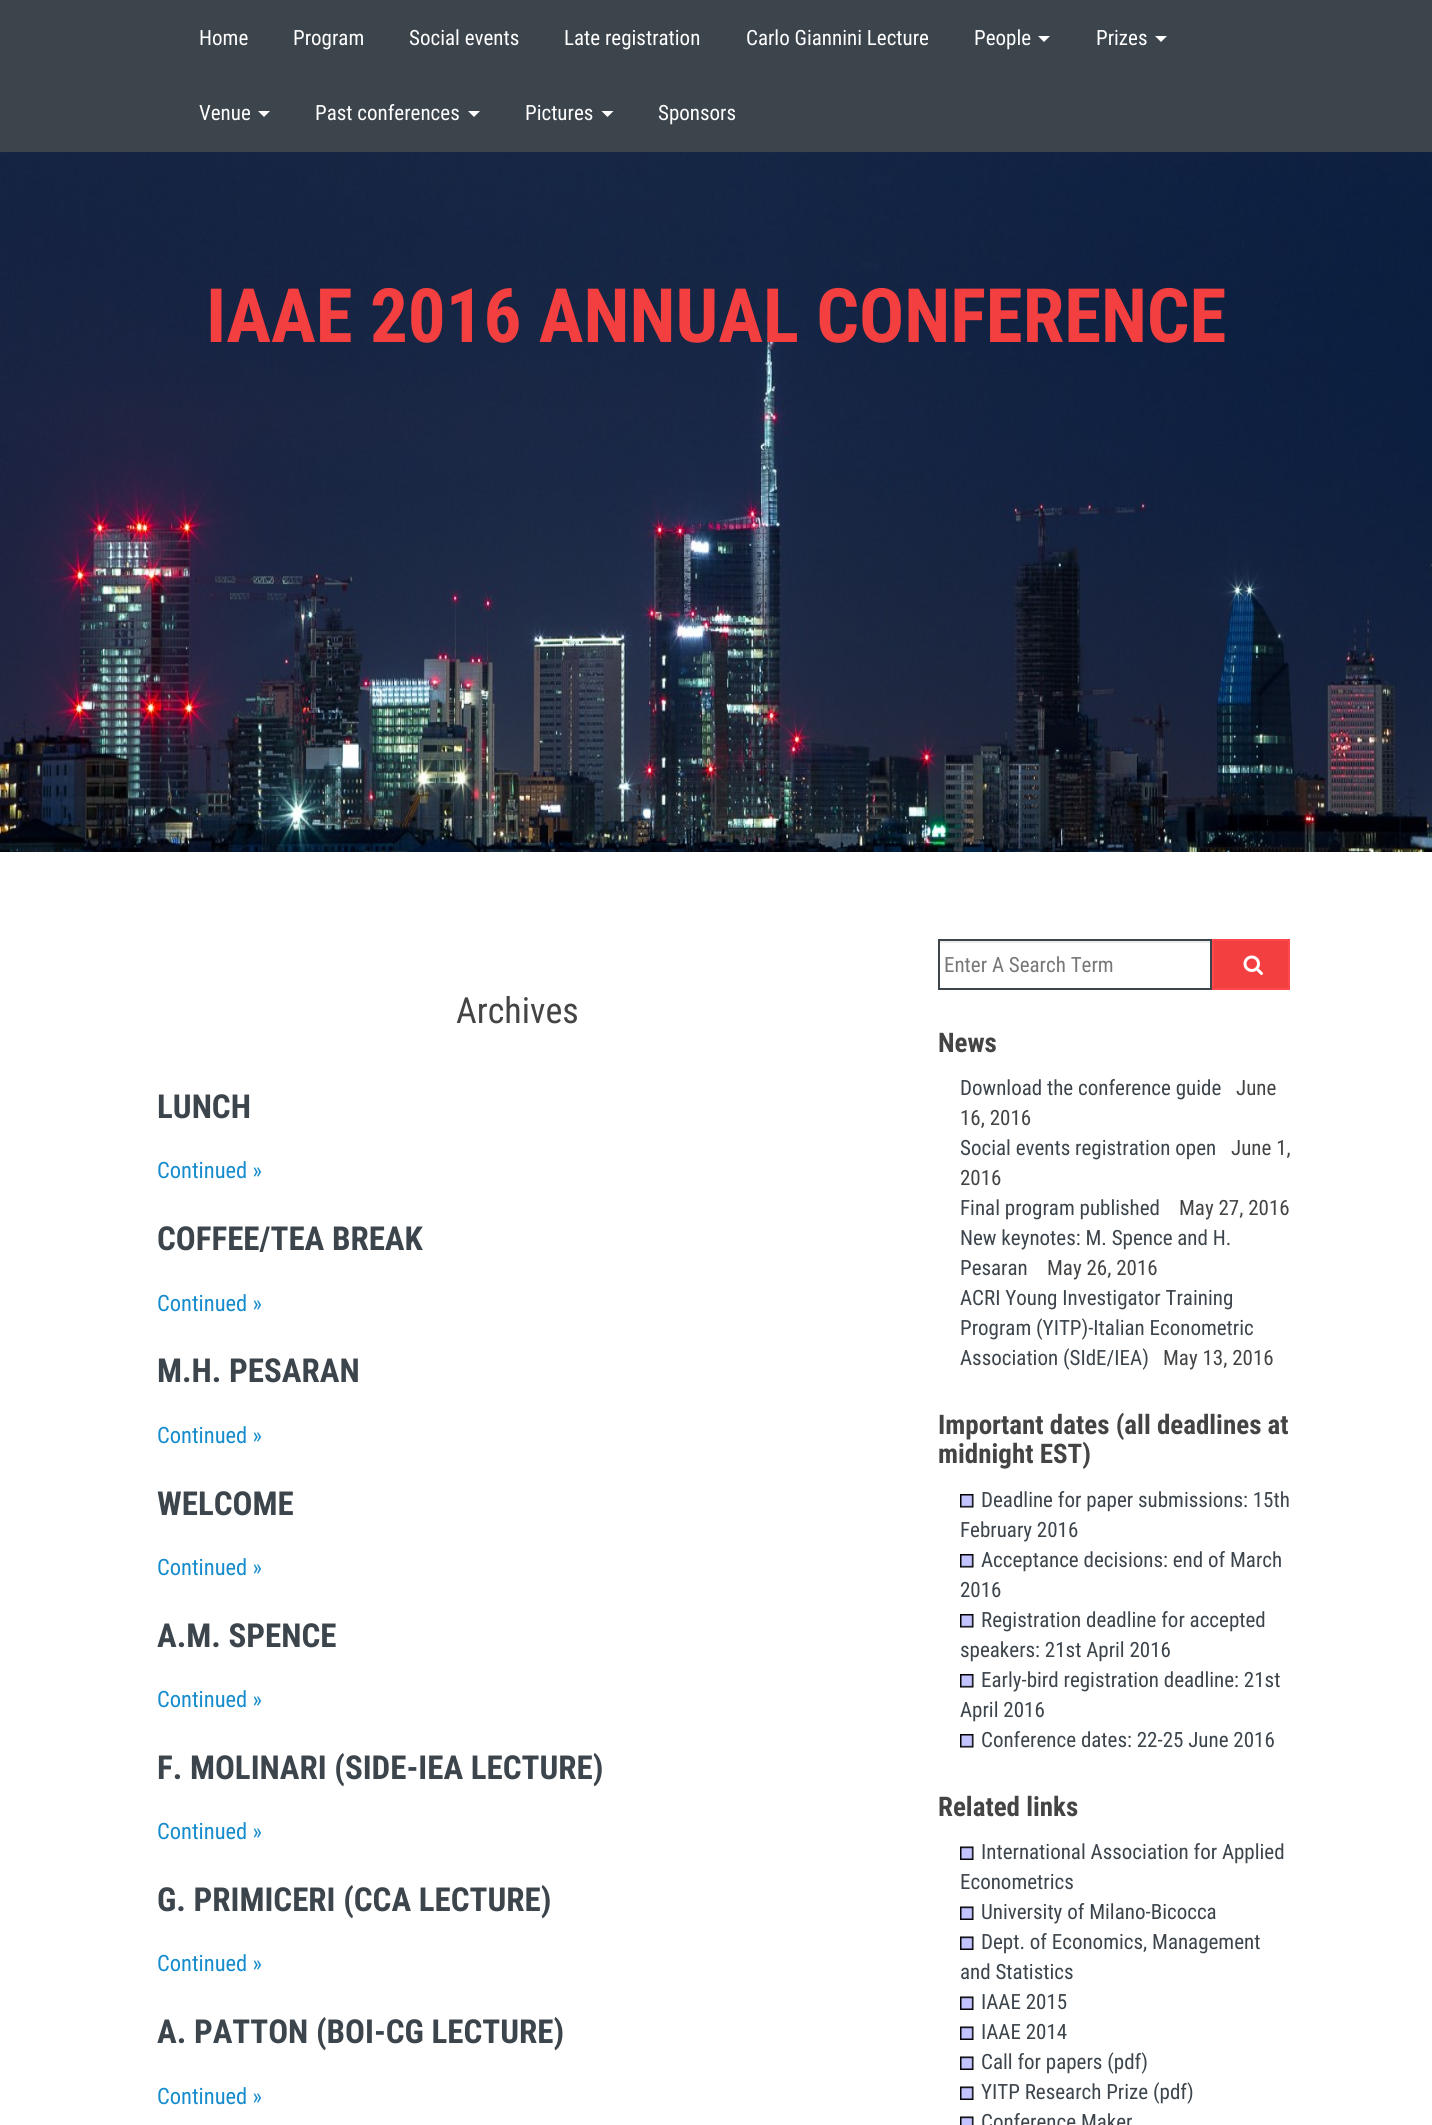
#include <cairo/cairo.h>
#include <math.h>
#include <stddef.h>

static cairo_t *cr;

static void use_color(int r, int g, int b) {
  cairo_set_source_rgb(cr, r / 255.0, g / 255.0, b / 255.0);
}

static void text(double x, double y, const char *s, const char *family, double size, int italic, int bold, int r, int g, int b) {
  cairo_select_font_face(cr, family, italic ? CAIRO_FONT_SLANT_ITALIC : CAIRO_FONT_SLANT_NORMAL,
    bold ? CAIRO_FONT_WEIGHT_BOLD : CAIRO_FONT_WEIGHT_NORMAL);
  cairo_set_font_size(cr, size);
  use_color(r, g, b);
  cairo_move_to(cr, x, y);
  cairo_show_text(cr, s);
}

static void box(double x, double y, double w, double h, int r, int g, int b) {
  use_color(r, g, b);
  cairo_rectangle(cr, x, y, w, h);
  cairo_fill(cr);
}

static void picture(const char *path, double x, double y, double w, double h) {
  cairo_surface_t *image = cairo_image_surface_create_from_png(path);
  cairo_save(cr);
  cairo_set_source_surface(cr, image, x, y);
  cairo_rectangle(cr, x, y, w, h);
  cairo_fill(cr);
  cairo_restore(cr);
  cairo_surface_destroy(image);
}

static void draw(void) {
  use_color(255, 255, 255);
  cairo_paint(cr);
  box(0, 0, 1432, 152, 60, 68, 76);
  use_color(255, 255, 255);
  cairo_new_path(cr);
  cairo_move_to(cr, 1038, 36);
  cairo_line_to(cr, 1050, 36);
  cairo_line_to(cr, 1044, 42);
  cairo_close_path(cr);
  cairo_fill(cr);
  cairo_new_path(cr);
  cairo_move_to(cr, 1155, 36);
  cairo_line_to(cr, 1167, 36);
  cairo_line_to(cr, 1161, 42);
  cairo_close_path(cr);
  cairo_fill(cr);
  cairo_new_path(cr);
  cairo_move_to(cr, 258, 111);
  cairo_line_to(cr, 270, 111);
  cairo_line_to(cr, 264, 117);
  cairo_close_path(cr);
  cairo_fill(cr);
  cairo_new_path(cr);
  cairo_move_to(cr, 468, 111);
  cairo_line_to(cr, 480, 111);
  cairo_line_to(cr, 474, 117);
  cairo_close_path(cr);
  cairo_fill(cr);
  cairo_new_path(cr);
  cairo_move_to(cr, 601.5, 111);
  cairo_line_to(cr, 613.5, 111);
  cairo_line_to(cr, 607.5, 117);
  cairo_close_path(cr);
  cairo_fill(cr);
  picture("img_01.png", 0, 152, 1432, 700);
  box(939, 941, 272, 2, 236, 236, 236);
  cairo_rectangle(cr, 939, 940, 272, 49);
  use_color(60, 68, 76);
  cairo_stroke(cr);
  use_color(243, 63, 63);
  cairo_rectangle(cr, 1213, 940, 76, 49);
  cairo_fill_preserve(cr);
  use_color(255, 71, 76);
  cairo_stroke(cr);
  picture("img_02.png", 1243, 955, 20, 20);
  picture("img_03.png", 960, 1494, 14, 14);
  picture("img_03.png", 960, 1554, 14, 14);
  picture("img_03.png", 960, 1614, 14, 14);
  picture("img_03.png", 960, 1674, 14, 14);
  picture("img_03.png", 960, 1734, 14, 14);
  picture("img_04.png", 960, 1846, 14, 14);
  picture("img_04.png", 960, 1906, 14, 14);
  picture("img_04.png", 960, 1936, 14, 14);
  picture("img_04.png", 960, 1996, 14, 14);
  picture("img_04.png", 960, 2026, 14, 14);
  picture("img_04.png", 960, 2056, 14, 14);
  picture("img_04.png", 960, 2086, 14, 14);
  picture("img_05.png", 960, 2116, 14, 9);
  text(199, 45, "Home", "Roboto Condensed", 21, 0, 0, 255, 255, 255);
  text(293, 45, "Program", "Roboto Condensed", 21, 0, 0, 255, 255, 255);
  text(409, 45, "Social events", "Roboto Condensed", 21, 0, 0, 255, 255, 255);
  text(564, 45, "Late registration", "Roboto Condensed", 21, 0, 0, 255, 255, 255);
  text(746, 45, "Carlo Giannini Lecture", "Roboto Condensed", 21, 0, 0, 255, 255, 255);
  text(974, 45, "People", "Roboto Condensed", 21, 0, 0, 255, 255, 255);
  text(1096, 45, "Prizes", "Roboto Condensed", 21, 0, 0, 255, 255, 255);
  text(199, 120, "Venue", "Roboto Condensed", 21, 0, 0, 255, 255, 255);
  text(315, 120, "Past conferences", "Roboto Condensed", 21, 0, 0, 255, 255, 255);
  text(525, 120, "Pictures", "Roboto Condensed", 21, 0, 0, 255, 255, 255);
  text(658, 120, "Sponsors", "Roboto Condensed", 21, 0, 0, 255, 255, 255);
  text(206, 342, "IAAE 2016 ANNUAL CONFERENCE", "Roboto Condensed", 75, 0, 1, 243, 63, 63);
  text(456, 1023, "Archives", "Roboto Condensed", 36, 0, 0, 68, 68, 68);
  text(157, 1118, "LUNCH", "Roboto Condensed", 33, 0, 1, 60, 68, 76);
  text(157, 1178, "Continued »", "Roboto Condensed", 22.5, 0, 0, 22, 140, 204);
  text(157, 1250, "COFFEE/TEA BREAK", "Roboto Condensed", 33, 0, 1, 60, 68, 76);
  text(157, 1311, "Continued »", "Roboto Condensed", 22.5, 0, 0, 22, 140, 204);
  text(157, 1382, "M.H. PESARAN", "Roboto Condensed", 33, 0, 1, 60, 68, 76);
  text(157, 1443, "Continued »", "Roboto Condensed", 22.5, 0, 0, 22, 140, 204);
  text(157, 1515, "WELCOME", "Roboto Condensed", 33, 0, 1, 60, 68, 76);
  text(157, 1575, "Continued »", "Roboto Condensed", 22.5, 0, 0, 22, 140, 204);
  text(157, 1647, "A.M. SPENCE", "Roboto Condensed", 33, 0, 1, 60, 68, 76);
  text(157, 1707, "Continued »", "Roboto Condensed", 22.5, 0, 0, 22, 140, 204);
  text(157, 1779, "F. MOLINARI (SIDE-IEA LECTURE)", "Roboto Condensed", 33, 0, 1, 60, 68, 76);
  text(157, 1839, "Continued »", "Roboto Condensed", 22.5, 0, 0, 22, 140, 204);
  text(157, 1911, "G. PRIMICERI (CCA LECTURE)", "Roboto Condensed", 33, 0, 1, 60, 68, 76);
  text(157, 1971, "Continued »", "Roboto Condensed", 22.5, 0, 0, 22, 140, 204);
  text(157, 2043, "A. PATTON (BOI-CG LECTURE)", "Roboto Condensed", 33, 0, 1, 60, 68, 76);
  text(157, 2104, "Continued »", "Roboto Condensed", 22.5, 0, 0, 22, 140, 204);
  text(944, 972, "Enter A Search Term", "Roboto Condensed", 21, 0, 0, 119, 119, 119);
  text(938, 1052, "News", "Roboto Condensed", 27, 0, 1, 68, 68, 68);
  text(960, 1095, "Download the conference guide", "Roboto Condensed", 21, 0, 0, 60, 68, 76);
  text(1236, 1095, "June", "Roboto Condensed", 21, 0, 0, 68, 68, 68);
  text(960, 1125, "16, 2016", "Roboto Condensed", 21, 0, 0, 68, 68, 68);
  text(960, 1155, "Social events registration open", "Roboto Condensed", 21, 0, 0, 60, 68, 76);
  text(1231, 1155, "June 1,", "Roboto Condensed", 21, 0, 0, 68, 68, 68);
  text(960, 1185, "2016", "Roboto Condensed", 21, 0, 0, 68, 68, 68);
  text(960, 1215, "Final program published", "Roboto Condensed", 21, 0, 0, 60, 68, 76);
  text(1179, 1215, "May 27, 2016", "Roboto Condensed", 21, 0, 0, 68, 68, 68);
  text(960, 1245, "New keynotes: M. Spence and H.", "Roboto Condensed", 21, 0, 0, 60, 68, 76);
  text(960, 1275, "Pesaran", "Roboto Condensed", 21, 0, 0, 60, 68, 76);
  text(1047, 1275, "May 26, 2016", "Roboto Condensed", 21, 0, 0, 68, 68, 68);
  text(960, 1305, "ACRI Young Investigator Training", "Roboto Condensed", 21, 0, 0, 60, 68, 76);
  text(960, 1335, "Program (YITP)-Italian Econometric", "Roboto Condensed", 21, 0, 0, 60, 68, 76);
  text(960, 1365, "Association (SIdE/IEA)", "Roboto Condensed", 21, 0, 0, 60, 68, 76);
  text(1163, 1365, "May 13, 2016", "Roboto Condensed", 21, 0, 0, 68, 68, 68);
  text(938, 1434, "Important dates (all deadlines at", "Roboto Condensed", 27, 0, 1, 68, 68, 68);
  text(938, 1463, "midnight EST)", "Roboto Condensed", 27, 0, 1, 68, 68, 68);
  text(981, 1507, "Deadline for paper submissions: 15th", "Roboto Condensed", 21, 0, 0, 60, 68, 76);
  text(960, 1537, "February 2016", "Roboto Condensed", 21, 0, 0, 60, 68, 76);
  text(981, 1567, "Acceptance decisions: end of March", "Roboto Condensed", 21, 0, 0, 60, 68, 76);
  text(960, 1597, "2016", "Roboto Condensed", 21, 0, 0, 60, 68, 76);
  text(981, 1627, "Registration deadline for accepted", "Roboto Condensed", 21, 0, 0, 60, 68, 76);
  text(960, 1657, "speakers: 21st April 2016", "Roboto Condensed", 21, 0, 0, 60, 68, 76);
  text(981, 1687, "Early-bird registration deadline: 21st", "Roboto Condensed", 21, 0, 0, 60, 68, 76);
  text(960, 1717, "April 2016", "Roboto Condensed", 21, 0, 0, 60, 68, 76);
  text(981, 1747, "Conference dates: 22-25 June 2016", "Roboto Condensed", 21, 0, 0, 60, 68, 76);
  text(938, 1816, "Related links", "Roboto Condensed", 27, 0, 1, 68, 68, 68);
  text(981, 1859, "International Association for Applied", "Roboto Condensed", 21, 0, 0, 60, 68, 76);
  text(960, 1889, "Econometrics", "Roboto Condensed", 21, 0, 0, 60, 68, 76);
  text(981, 1919, "University of Milano-Bicocca", "Roboto Condensed", 21, 0, 0, 60, 68, 76);
  text(981, 1949, "Dept. of Economics, Management", "Roboto Condensed", 21, 0, 0, 60, 68, 76);
  text(960, 1979, "and Statistics", "Roboto Condensed", 21, 0, 0, 60, 68, 76);
  text(981, 2009, "IAAE 2015", "Roboto Condensed", 21, 0, 0, 60, 68, 76);
  text(981, 2039, "IAAE 2014", "Roboto Condensed", 21, 0, 0, 60, 68, 76);
  text(981, 2069, "Call for papers (pdf)", "Roboto Condensed", 21, 0, 0, 60, 68, 76);
  text(981, 2099, "YITP Research Prize (pdf)", "Roboto Condensed", 21, 0, 0, 60, 68, 76);
  text(981, 2129, "Conference Maker", "Roboto Condensed", 21, 0, 0, 60, 68, 76);
}

int main(void) {
  cairo_surface_t *surface = cairo_image_surface_create(CAIRO_FORMAT_RGB24, 1432, 2125);
  cr = cairo_create(surface);
  cairo_font_options_t *options = cairo_font_options_create();
  cairo_font_options_set_hint_metrics(options, CAIRO_HINT_METRICS_OFF);
  cairo_font_options_set_hint_style(options, CAIRO_HINT_STYLE_NONE);
  cairo_set_font_options(cr, options);
  cairo_set_miter_limit(cr, 4);
  draw();
  cairo_surface_write_to_png(surface, "out.png");
  cairo_font_options_destroy(options);
  cairo_destroy(cr);
  cairo_surface_destroy(surface);
  return 0;
}
